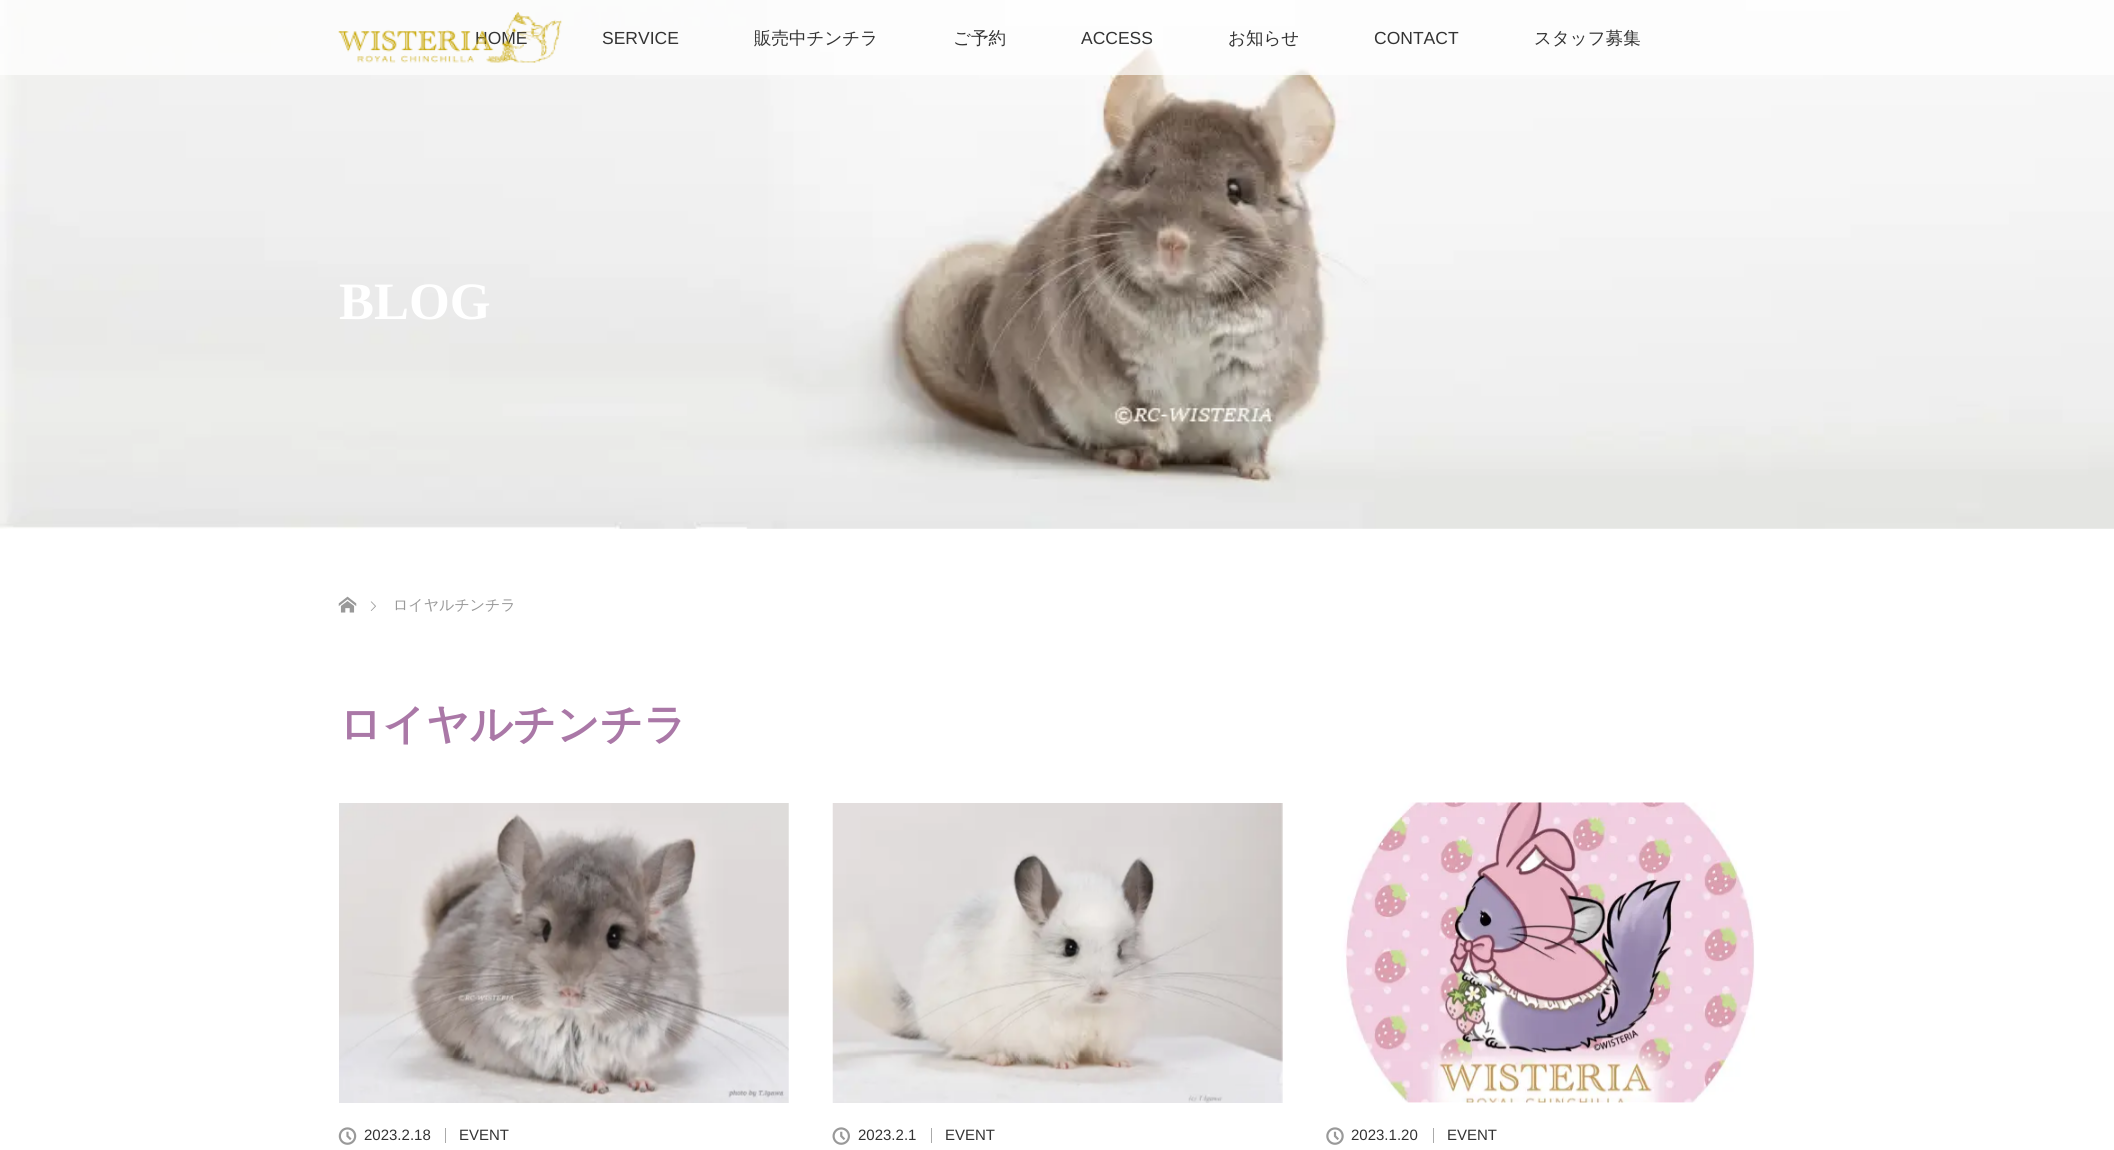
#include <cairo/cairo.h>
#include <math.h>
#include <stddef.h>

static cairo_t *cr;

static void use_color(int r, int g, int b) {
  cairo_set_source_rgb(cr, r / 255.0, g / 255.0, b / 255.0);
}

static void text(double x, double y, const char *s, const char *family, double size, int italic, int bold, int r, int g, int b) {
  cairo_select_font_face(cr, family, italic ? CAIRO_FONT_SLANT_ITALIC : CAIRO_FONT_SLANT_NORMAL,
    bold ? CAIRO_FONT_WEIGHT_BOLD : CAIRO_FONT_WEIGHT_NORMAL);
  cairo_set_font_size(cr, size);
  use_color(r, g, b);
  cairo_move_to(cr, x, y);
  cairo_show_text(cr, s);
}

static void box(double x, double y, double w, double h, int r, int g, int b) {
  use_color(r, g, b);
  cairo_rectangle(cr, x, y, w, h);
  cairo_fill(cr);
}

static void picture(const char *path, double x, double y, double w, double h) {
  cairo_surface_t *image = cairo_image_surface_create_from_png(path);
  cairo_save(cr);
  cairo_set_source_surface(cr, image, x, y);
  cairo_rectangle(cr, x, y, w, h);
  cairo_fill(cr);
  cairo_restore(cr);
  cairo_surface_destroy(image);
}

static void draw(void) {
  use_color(255, 255, 255);
  cairo_paint(cr);
  picture("img_02.png", 0, 0, 2114, 529);
  cairo_set_source_rgba(cr, 1, 1, 1, 0.7);
  cairo_rectangle(cr, 0, 0, 2114, 75);
  cairo_fill(cr);
  picture("img_03.png", 338, 596, 19, 17);
  picture("img_04.png", 370, 601, 6, 10);
  picture("img_05.png", 339, 803, 450, 300);
  picture("img_06.png", 338, 1127, 19, 18);
  box(445, 1128, 1, 15, 170, 170, 170);
  picture("img_07.png", 832, 803, 451, 300);
  picture("img_08.png", 832, 1127, 18, 18);
  box(931, 1128, 1, 15, 170, 170, 170);
  picture("img_09.png", 1341, 802, 414, 301);
  picture("img_10.png", 1326, 1127, 18, 18);
  box(1433, 1128, 1, 15, 170, 170, 170);
  text(475, 44, "HOME", "Liberation Sans", 17.5, 0, 0, 51, 51, 51);
  picture("img_01.png", 338, 12, 224, 51);
  text(602, 44, "SERVICE", "Liberation Sans", 17.5, 0, 0, 51, 51, 51);
  text(754, 44, "販売中チンチラ", "WenQuanYi Zen Hei Medium", 17.5, 0, 0, 51, 51, 51);
  text(953, 44, "ご予約", "WenQuanYi Zen Hei Medium", 17.5, 0, 0, 51, 51, 51);
  text(1081, 44, "ACCESS", "Liberation Sans", 17.5, 0, 0, 51, 51, 51);
  text(1228, 44, "お知らせ", "WenQuanYi Zen Hei Medium", 17.5, 0, 0, 51, 51, 51);
  text(1374, 44, "CONTACT", "Liberation Sans", 17.5, 0, 0, 51, 51, 51);
  text(1534, 44, "スタッフ募集", "WenQuanYi Zen Hei Medium", 17.5, 0, 0, 51, 51, 51);
  text(339, 319, "BLOG", "Liberation Serif", 52.5, 0, 1, 255, 255, 255);
  text(393, 610, "ロイヤルチンチラ", "WenQuanYi Zen Hei Medium", 15, 0, 0, 153, 153, 153);
  text(339, 739, "ロイヤルチンチラ", "WenQuanYi Zen Hei", 42.5, 0, 1, 170, 120, 167);
  text(364, 1140, "2023.2.18", "Liberation Sans", 15, 0, 0, 51, 51, 51);
  text(459, 1140, "EVENT", "Liberation Sans", 15, 0, 0, 51, 51, 51);
  text(858, 1140, "2023.2.1", "Liberation Sans", 15, 0, 0, 51, 51, 51);
  text(945, 1140, "EVENT", "Liberation Sans", 15, 0, 0, 51, 51, 51);
  text(1351, 1140, "2023.1.20", "Liberation Sans", 15, 0, 0, 51, 51, 51);
  text(1447, 1140, "EVENT", "Liberation Sans", 15, 0, 0, 51, 51, 51);
}

int main(void) {
  cairo_surface_t *surface = cairo_image_surface_create(CAIRO_FORMAT_RGB24, 2114, 1150);
  cr = cairo_create(surface);
  cairo_font_options_t *options = cairo_font_options_create();
  cairo_font_options_set_hint_metrics(options, CAIRO_HINT_METRICS_OFF);
  cairo_font_options_set_hint_style(options, CAIRO_HINT_STYLE_NONE);
  cairo_set_font_options(cr, options);
  cairo_set_miter_limit(cr, 4);
  draw();
  cairo_surface_write_to_png(surface, "out.png");
  cairo_font_options_destroy(options);
  cairo_destroy(cr);
  cairo_surface_destroy(surface);
  return 0;
}
